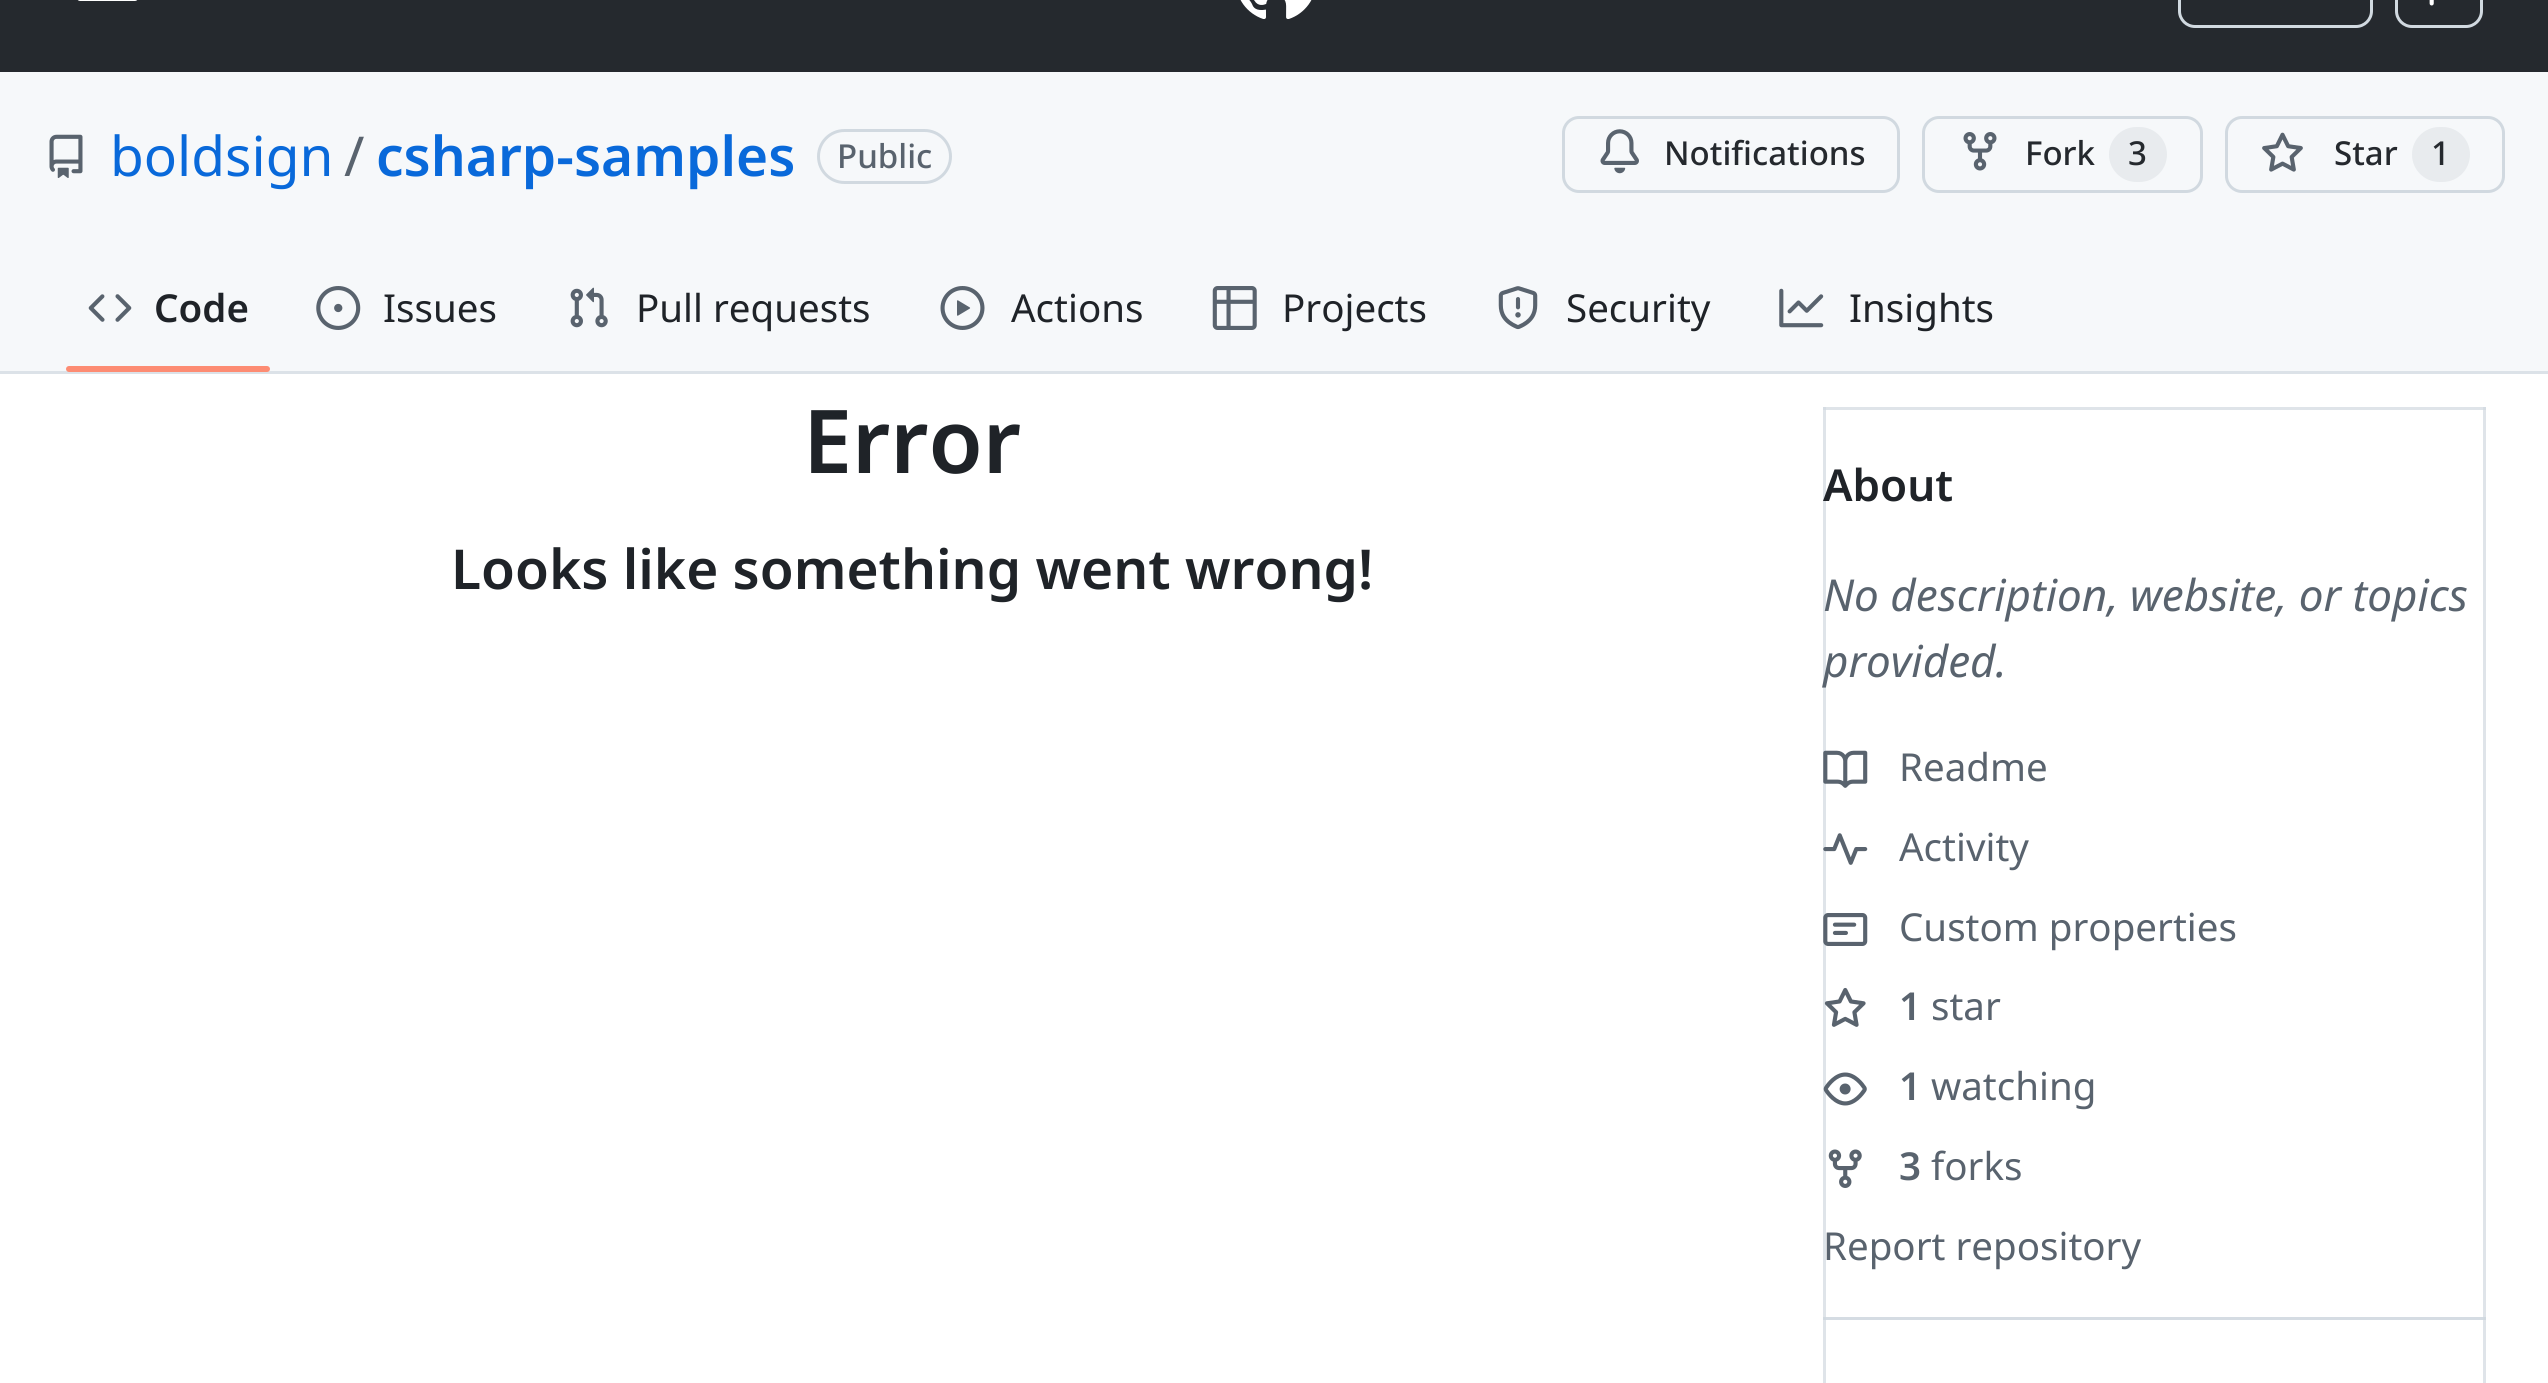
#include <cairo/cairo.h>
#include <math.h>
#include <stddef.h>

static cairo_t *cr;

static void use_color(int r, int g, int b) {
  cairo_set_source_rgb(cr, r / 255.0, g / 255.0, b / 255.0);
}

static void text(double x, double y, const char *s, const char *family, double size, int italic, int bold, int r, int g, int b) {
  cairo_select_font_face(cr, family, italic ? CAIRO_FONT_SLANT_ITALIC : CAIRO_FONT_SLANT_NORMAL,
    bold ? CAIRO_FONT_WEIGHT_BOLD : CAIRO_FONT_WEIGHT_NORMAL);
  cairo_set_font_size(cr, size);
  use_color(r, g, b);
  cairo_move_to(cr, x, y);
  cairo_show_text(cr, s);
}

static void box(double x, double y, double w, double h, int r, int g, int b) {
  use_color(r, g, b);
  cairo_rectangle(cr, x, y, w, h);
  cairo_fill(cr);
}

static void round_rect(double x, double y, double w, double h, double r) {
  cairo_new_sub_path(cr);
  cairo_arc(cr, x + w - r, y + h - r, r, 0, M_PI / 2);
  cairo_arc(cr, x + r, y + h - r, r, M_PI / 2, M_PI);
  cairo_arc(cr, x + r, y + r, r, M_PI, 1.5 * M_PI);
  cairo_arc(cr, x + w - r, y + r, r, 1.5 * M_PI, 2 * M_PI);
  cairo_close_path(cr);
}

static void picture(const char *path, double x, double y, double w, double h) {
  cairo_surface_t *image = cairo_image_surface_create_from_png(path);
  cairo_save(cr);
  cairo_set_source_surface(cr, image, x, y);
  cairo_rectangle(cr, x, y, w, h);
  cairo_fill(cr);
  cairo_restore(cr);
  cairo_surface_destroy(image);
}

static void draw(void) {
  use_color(255, 255, 255);
  cairo_paint(cr);
  box(1823, 407, 3, 976, 223, 228, 233);
  box(2483, 407, 3, 976, 223, 228, 233);
  box(0, 0, 2548, 72, 37, 41, 46);
  use_color(255, 255, 255);
  round_rect(77, -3, 61, 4, 3);
  cairo_fill(cr);
  round_rect(2179.5, -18.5, 192, 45, 15.5);
  use_color(209, 217, 224);
  cairo_set_line_width(cr, 3);
  cairo_stroke(cr);
  round_rect(2396.5, -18.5, 85, 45, 15.5);
  cairo_stroke(cr);
  picture("img_01.png", 2429, 0, 5, 6);
  picture("img_02.png", 1240, 0, 72, 19);
  box(0, 72, 2548, 299, 246, 248, 250);
  picture("img_03.png", 49, 134, 34, 44);
  round_rect(818.5, 130.5, 132, 52, 26);
  use_color(209, 217, 224);
  cairo_stroke(cr);
  round_rect(1563.5, 117.5, 335, 74, 15.5);
  cairo_stroke(cr);
  picture("img_04.png", 1600, 129, 39, 45);
  round_rect(1923.5, 117.5, 278, 74, 15.5);
  cairo_stroke(cr);
  picture("img_05.png", 1963, 132, 34, 39);
  use_color(232, 235, 238);
  round_rect(2109, 127, 58, 55, 27.5);
  cairo_fill(cr);
  round_rect(2226.5, 117.5, 277, 74, 15.5);
  use_color(209, 217, 224);
  cairo_stroke(cr);
  picture("img_06.png", 2262, 132, 41, 40);
  use_color(232, 235, 238);
  round_rect(2412, 127, 58, 55, 27.5);
  cairo_fill(cr);
  box(0, 371, 2548, 3, 220, 226, 232);
  picture("img_07.png", 88, 294, 44, 28);
  use_color(253, 140, 115);
  round_rect(66, 366, 204, 6, 3);
  cairo_fill(cr);
  picture("img_08.png", 316, 286, 45, 44);
  picture("img_09.png", 570, 287, 38, 41);
  picture("img_10.png", 940, 286, 45, 44);
  picture("img_11.png", 1212, 286, 45, 44);
  picture("img_12.png", 1498, 286, 40, 44);
  picture("img_13.png", 1779, 288, 45, 40);
  box(1823, 407, 663, 3, 223, 228, 233);
  box(1823, 407, 3, 3, 213, 220, 227);
  box(2483, 407, 3, 3, 213, 220, 227);
  picture("img_14.png", 1823, 750, 45, 38);
  picture("img_15.png", 1823, 833, 45, 32);
  picture("img_16.png", 1823, 913, 45, 33);
  picture("img_17.png", 1824, 987, 42, 40);
  picture("img_18.png", 1823, 1072, 44, 34);
  picture("img_19.png", 1828, 1149, 34, 39);
  box(1823, 1317, 663, 3, 213, 220, 227);
  box(1823, 1317, 3, 3, 209, 217, 224);
  box(2483, 1317, 3, 3, 209, 217, 224);
  text(110, 176, "boldsign", "Noto Sans", 55, 0, 0, 9, 105, 218);
  text(344, 176, "/", "Noto Sans", 55, 0, 0, 89, 99, 110);
  text(376, 176, "csharp-samples", "Noto Sans SemiBold", 55, 0, 0, 9, 105, 218);
  text(837, 168, "Public", "Noto Sans Medium", 33, 0, 0, 89, 99, 110);
  text(1664, 165, "Notifications", "Noto Sans Medium", 33, 0, 0, 37, 41, 46);
  text(2025, 165, "Fork", "Noto Sans Medium", 33, 0, 0, 37, 41, 46);
  text(2128, 165, "3", "Noto Sans Medium", 33, 0, 0, 37, 41, 46);
  text(2334, 165, "Star", "Noto Sans Medium", 33, 0, 0, 37, 41, 46);
  text(2431, 165, "1", "Noto Sans Medium", 33, 0, 0, 37, 41, 46);
  text(154, 322, "Code", "Noto Sans SemiBold", 38.5, 0, 0, 31, 35, 40);
  text(383, 322, "Issues", "Noto Sans", 38.5, 0, 0, 31, 35, 40);
  text(636, 322, "Pull requests", "Noto Sans", 38.5, 0, 0, 31, 35, 40);
  text(1011, 322, "Actions", "Noto Sans", 38.5, 0, 0, 31, 35, 40);
  text(1282, 322, "Projects", "Noto Sans", 38.5, 0, 0, 31, 35, 40);
  text(1566, 322, "Security", "Noto Sans", 38.5, 0, 0, 31, 35, 40);
  text(1849, 322, "Insights", "Noto Sans", 38.5, 0, 0, 31, 35, 40);
  text(803, 473, "Error", "Noto Sans SemiBold", 88, 0, 0, 31, 35, 40);
  text(451, 589, "Looks like something went wrong!", "Noto Sans SemiBold", 55, 0, 0, 31, 35, 40);
  text(1823, 501, "About", "Noto Sans SemiBold", 44, 0, 0, 31, 35, 40);
  text(1823, 611, "No description, website, or topics", "Noto Sans", 44, 1, 0, 89, 99, 110);
  text(1823, 677, "provided.", "Noto Sans", 44, 1, 0, 89, 99, 110);
  text(1899, 781, "Readme", "Noto Sans", 38.5, 0, 0, 89, 99, 110);
  text(1899, 861, "Activity", "Noto Sans", 38.5, 0, 0, 89, 99, 110);
  text(1899, 941, "Custom properties", "Noto Sans", 38.5, 0, 0, 89, 99, 110);
  text(1899, 1020, "1", "Noto Sans SemiBold", 38.5, 0, 0, 89, 99, 110);
  text(1931, 1020, "star", "Noto Sans", 38.5, 0, 0, 89, 99, 110);
  text(1899, 1100, "1", "Noto Sans SemiBold", 38.5, 0, 0, 89, 99, 110);
  text(1931, 1100, "watching", "Noto Sans", 38.5, 0, 0, 89, 99, 110);
  text(1899, 1180, "3", "Noto Sans SemiBold", 38.5, 0, 0, 89, 99, 110);
  text(1931, 1180, "forks", "Noto Sans", 38.5, 0, 0, 89, 99, 110);
  text(1823, 1260, "Report repository", "Noto Sans", 38.5, 0, 0, 89, 99, 110);
}

int main(void) {
  cairo_surface_t *surface = cairo_image_surface_create(CAIRO_FORMAT_RGB24, 2548, 1383);
  cr = cairo_create(surface);
  cairo_font_options_t *options = cairo_font_options_create();
  cairo_font_options_set_hint_metrics(options, CAIRO_HINT_METRICS_OFF);
  cairo_font_options_set_hint_style(options, CAIRO_HINT_STYLE_NONE);
  cairo_set_font_options(cr, options);
  cairo_set_miter_limit(cr, 4);
  draw();
  cairo_surface_write_to_png(surface, "out.png");
  cairo_font_options_destroy(options);
  cairo_destroy(cr);
  cairo_surface_destroy(surface);
  return 0;
}
